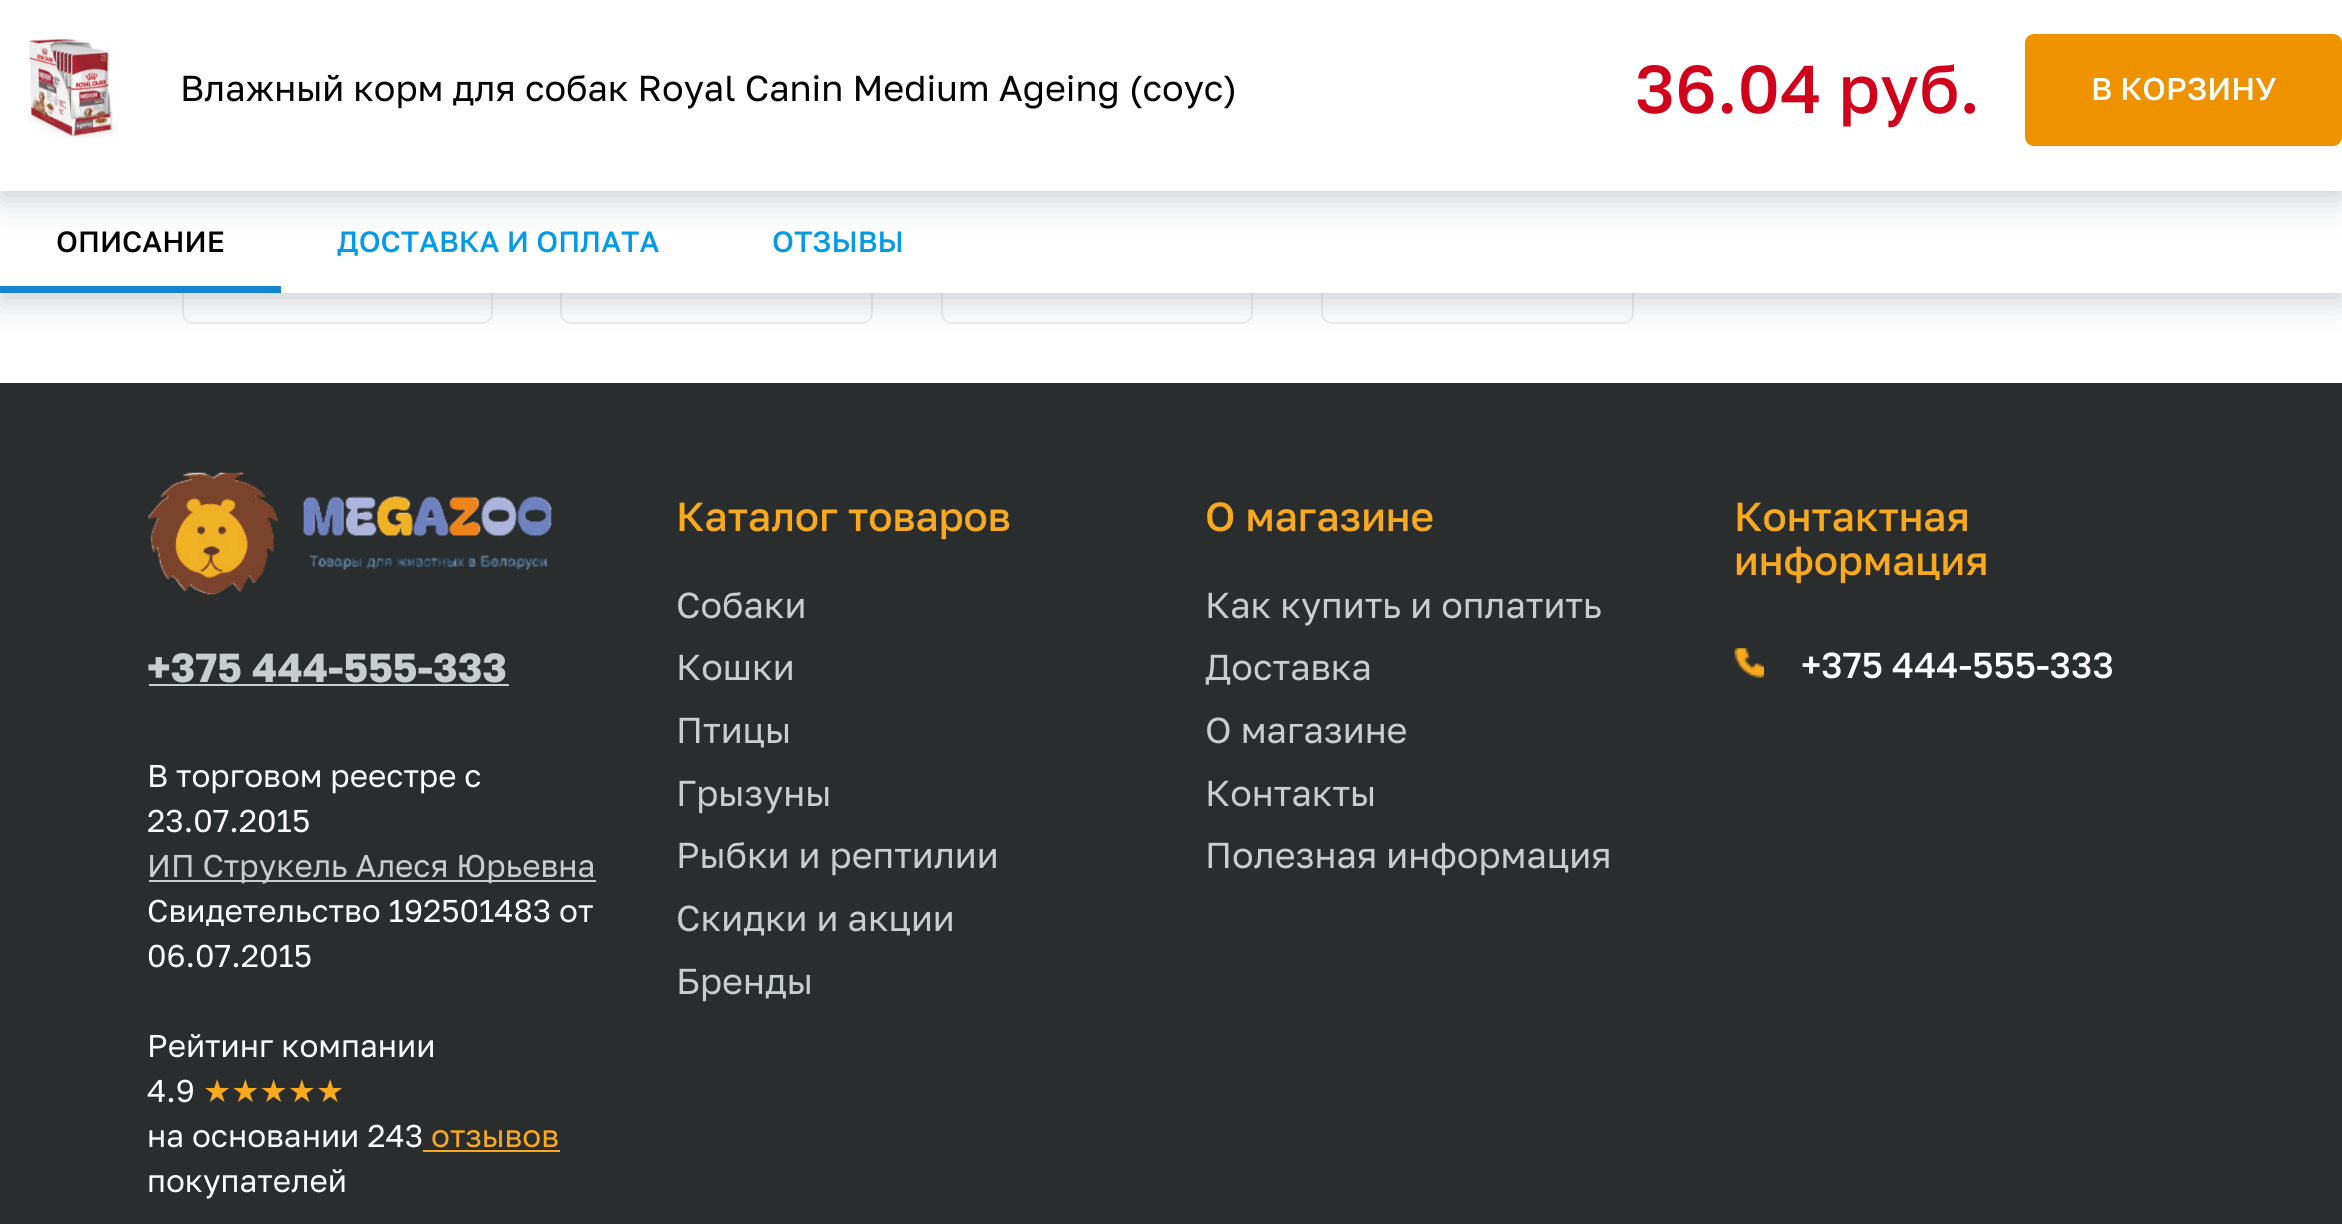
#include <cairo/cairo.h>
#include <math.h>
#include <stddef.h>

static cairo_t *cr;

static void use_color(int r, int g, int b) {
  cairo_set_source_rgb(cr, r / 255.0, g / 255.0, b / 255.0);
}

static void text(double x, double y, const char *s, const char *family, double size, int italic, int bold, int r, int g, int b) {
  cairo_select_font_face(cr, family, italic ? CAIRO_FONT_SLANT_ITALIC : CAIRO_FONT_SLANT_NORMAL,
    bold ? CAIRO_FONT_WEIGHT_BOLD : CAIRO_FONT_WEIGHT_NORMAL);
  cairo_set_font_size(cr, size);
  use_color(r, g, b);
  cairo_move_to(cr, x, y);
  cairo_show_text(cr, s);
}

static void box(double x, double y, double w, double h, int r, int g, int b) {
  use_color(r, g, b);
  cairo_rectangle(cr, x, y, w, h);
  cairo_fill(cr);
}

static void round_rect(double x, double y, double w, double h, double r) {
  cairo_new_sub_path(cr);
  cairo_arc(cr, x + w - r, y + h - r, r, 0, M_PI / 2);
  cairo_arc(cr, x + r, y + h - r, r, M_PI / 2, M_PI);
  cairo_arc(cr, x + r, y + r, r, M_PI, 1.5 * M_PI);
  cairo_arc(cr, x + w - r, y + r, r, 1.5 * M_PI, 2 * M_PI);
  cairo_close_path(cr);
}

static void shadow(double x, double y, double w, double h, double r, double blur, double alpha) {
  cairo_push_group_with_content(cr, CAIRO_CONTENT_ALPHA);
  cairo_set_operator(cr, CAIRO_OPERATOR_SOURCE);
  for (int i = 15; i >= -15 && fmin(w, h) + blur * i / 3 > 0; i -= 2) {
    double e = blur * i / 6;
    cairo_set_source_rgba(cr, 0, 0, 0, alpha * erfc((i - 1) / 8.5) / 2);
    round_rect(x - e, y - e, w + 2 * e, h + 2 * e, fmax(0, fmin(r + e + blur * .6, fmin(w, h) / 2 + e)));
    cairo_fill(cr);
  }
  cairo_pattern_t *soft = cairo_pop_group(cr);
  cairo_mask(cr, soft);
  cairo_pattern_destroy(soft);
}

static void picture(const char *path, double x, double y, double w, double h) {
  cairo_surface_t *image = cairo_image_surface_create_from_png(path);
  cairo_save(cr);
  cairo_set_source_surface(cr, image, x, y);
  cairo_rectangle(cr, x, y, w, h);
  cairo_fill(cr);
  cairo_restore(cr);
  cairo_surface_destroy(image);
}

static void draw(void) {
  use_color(255, 255, 255);
  cairo_paint(cr);
  round_rect(183, -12, 309, 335, 10);
  use_color(237, 237, 237);
  cairo_stroke(cr);
  round_rect(561, -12, 311, 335, 10);
  cairo_stroke(cr);
  round_rect(942, -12, 310, 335, 10);
  cairo_stroke(cr);
  round_rect(1322, -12, 311, 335, 10);
  cairo_stroke(cr);
  use_color(32, 54, 74);
  shadow(0, 200, 2342, 102, 0, 16, 0.23);
  box(0, 191, 2342, 102, 255, 255, 255);
  use_color(32, 54, 74);
  shadow(0, 9, 2342, 191, 0, 16, 0.23);
  box(0, 0, 2342, 191, 255, 255, 255);
  picture("img_01.png", 27, 38, 91, 100);
  use_color(238, 146, 0);
  round_rect(2026, 35, 315, 110, 8);
  cairo_fill_preserve(cr);
  cairo_stroke(cr);
  box(0, 286, 281, 7, 20, 133, 206);
  box(0, 383, 2342, 841, 41, 45, 46);
  picture("img_02.png", 1734, 648, 30, 30);
  picture("img_03.png", 148, 472, 404, 123);
  box(149, 684, 360, 2, 200, 206, 206);
  box(149, 880, 447, 2, 200, 206, 206);
  box(423, 1150, 137, 2, 249, 169, 29);
  text(180, 101, "Влажный корм для собак Royal Canin Medium Ageing (соус)", "Golos Text", 36, 0, 0, 0, 0, 0);
  text(1635, 113, "36.04 руб.", "Golos Text Medium", 67.5, 0, 0, 208, 2, 27);
  text(2091, 100, "В КОРЗИНУ", "Golos Text Medium", 31.5, 0, 0, 255, 255, 255);
  text(56, 252, "ОПИСАНИЕ", "Golos Text Medium", 29.25, 0, 0, 0, 0, 0);
  text(337, 252, "ДОСТАВКА И ОПЛАТА", "Golos Text Medium", 29.25, 0, 0, 3, 155, 229);
  text(772, 252, "ОТЗЫВЫ", "Golos Text Medium", 29.25, 0, 0, 3, 155, 229);
  text(676, 531, "Каталог товаров", "Golos Text Medium", 40.5, 0, 0, 249, 169, 29);
  text(676, 618, "Собаки", "Golos Text", 36, 0, 0, 200, 206, 206);
  text(676, 680, "Кошки", "Golos Text", 36, 0, 0, 200, 206, 206);
  text(676, 743, "Птицы", "Golos Text", 36, 0, 0, 200, 206, 206);
  text(676, 806, "Грызуны", "Golos Text", 36, 0, 0, 200, 206, 206);
  text(676, 868, "Рыбки и рептилии", "Golos Text", 36, 0, 0, 200, 206, 206);
  text(676, 931, "Скидки и акции", "Golos Text", 36, 0, 0, 200, 206, 206);
  text(676, 994, "Бренды", "Golos Text", 36, 0, 0, 200, 206, 206);
  text(1205, 531, "О магазине", "Golos Text Medium", 40.5, 0, 0, 249, 169, 29);
  text(1205, 618, "Как купить и оплатить", "Golos Text", 36, 0, 0, 200, 206, 206);
  text(1205, 680, "Доставка", "Golos Text", 36, 0, 0, 200, 206, 206);
  text(1205, 743, "О магазине", "Golos Text", 36, 0, 0, 200, 206, 206);
  text(1205, 806, "Контакты", "Golos Text", 36, 0, 0, 200, 206, 206);
  text(1205, 868, "Полезная информация", "Golos Text", 36, 0, 0, 200, 206, 206);
  text(1734, 531, "Контактная", "Golos Text Medium", 40.5, 0, 0, 249, 169, 29);
  text(1734, 575, "информация", "Golos Text Medium", 40.5, 0, 0, 249, 169, 29);
  text(1801, 678, "+375 444-555-333", "Golos Text Medium", 36, 0, 0, 255, 255, 255);
  text(147, 682, "+375 444-555-333", "Golos Text", 40.5, 0, 1, 200, 206, 206);
  text(147, 787, "В торговом реестре с", "Golos Text", 31.5, 0, 0, 255, 255, 255);
  text(147, 832, "23.07.2015", "Golos Text", 31.5, 0, 0, 255, 255, 255);
  text(147, 877, "ИП Струкель Алеся Юрьевна", "Golos Text", 31.5, 0, 0, 200, 206, 206);
  text(147, 922, "Свидетельство 192501483 от", "Golos Text", 31.5, 0, 0, 255, 255, 255);
  text(147, 967, "06.07.2015", "Golos Text", 31.5, 0, 0, 255, 255, 255);
  text(147, 1057, "Рейтинг компании", "Golos Text", 31.5, 0, 0, 255, 255, 255);
  text(147, 1102, "4.9", "Golos Text", 31.5, 0, 0, 255, 255, 255);
  text(203, 1102, "★★★★★", "DejaVu Sans", 31.5, 0, 0, 249, 169, 29);
  text(147, 1147, "на основании 243", "Golos Text", 31.5, 0, 0, 255, 255, 255);
  text(431, 1147, "отзывов", "Golos Text", 31.5, 0, 0, 249, 169, 29);
  text(147, 1192, "покупателей", "Golos Text", 31.5, 0, 0, 255, 255, 255);
}

int main(void) {
  cairo_surface_t *surface = cairo_image_surface_create(CAIRO_FORMAT_RGB24, 2342, 1224);
  cr = cairo_create(surface);
  cairo_font_options_t *options = cairo_font_options_create();
  cairo_font_options_set_hint_metrics(options, CAIRO_HINT_METRICS_OFF);
  cairo_font_options_set_hint_style(options, CAIRO_HINT_STYLE_NONE);
  cairo_set_font_options(cr, options);
  cairo_set_miter_limit(cr, 4);
  draw();
  cairo_surface_write_to_png(surface, "out.png");
  cairo_font_options_destroy(options);
  cairo_destroy(cr);
  cairo_surface_destroy(surface);
  return 0;
}
